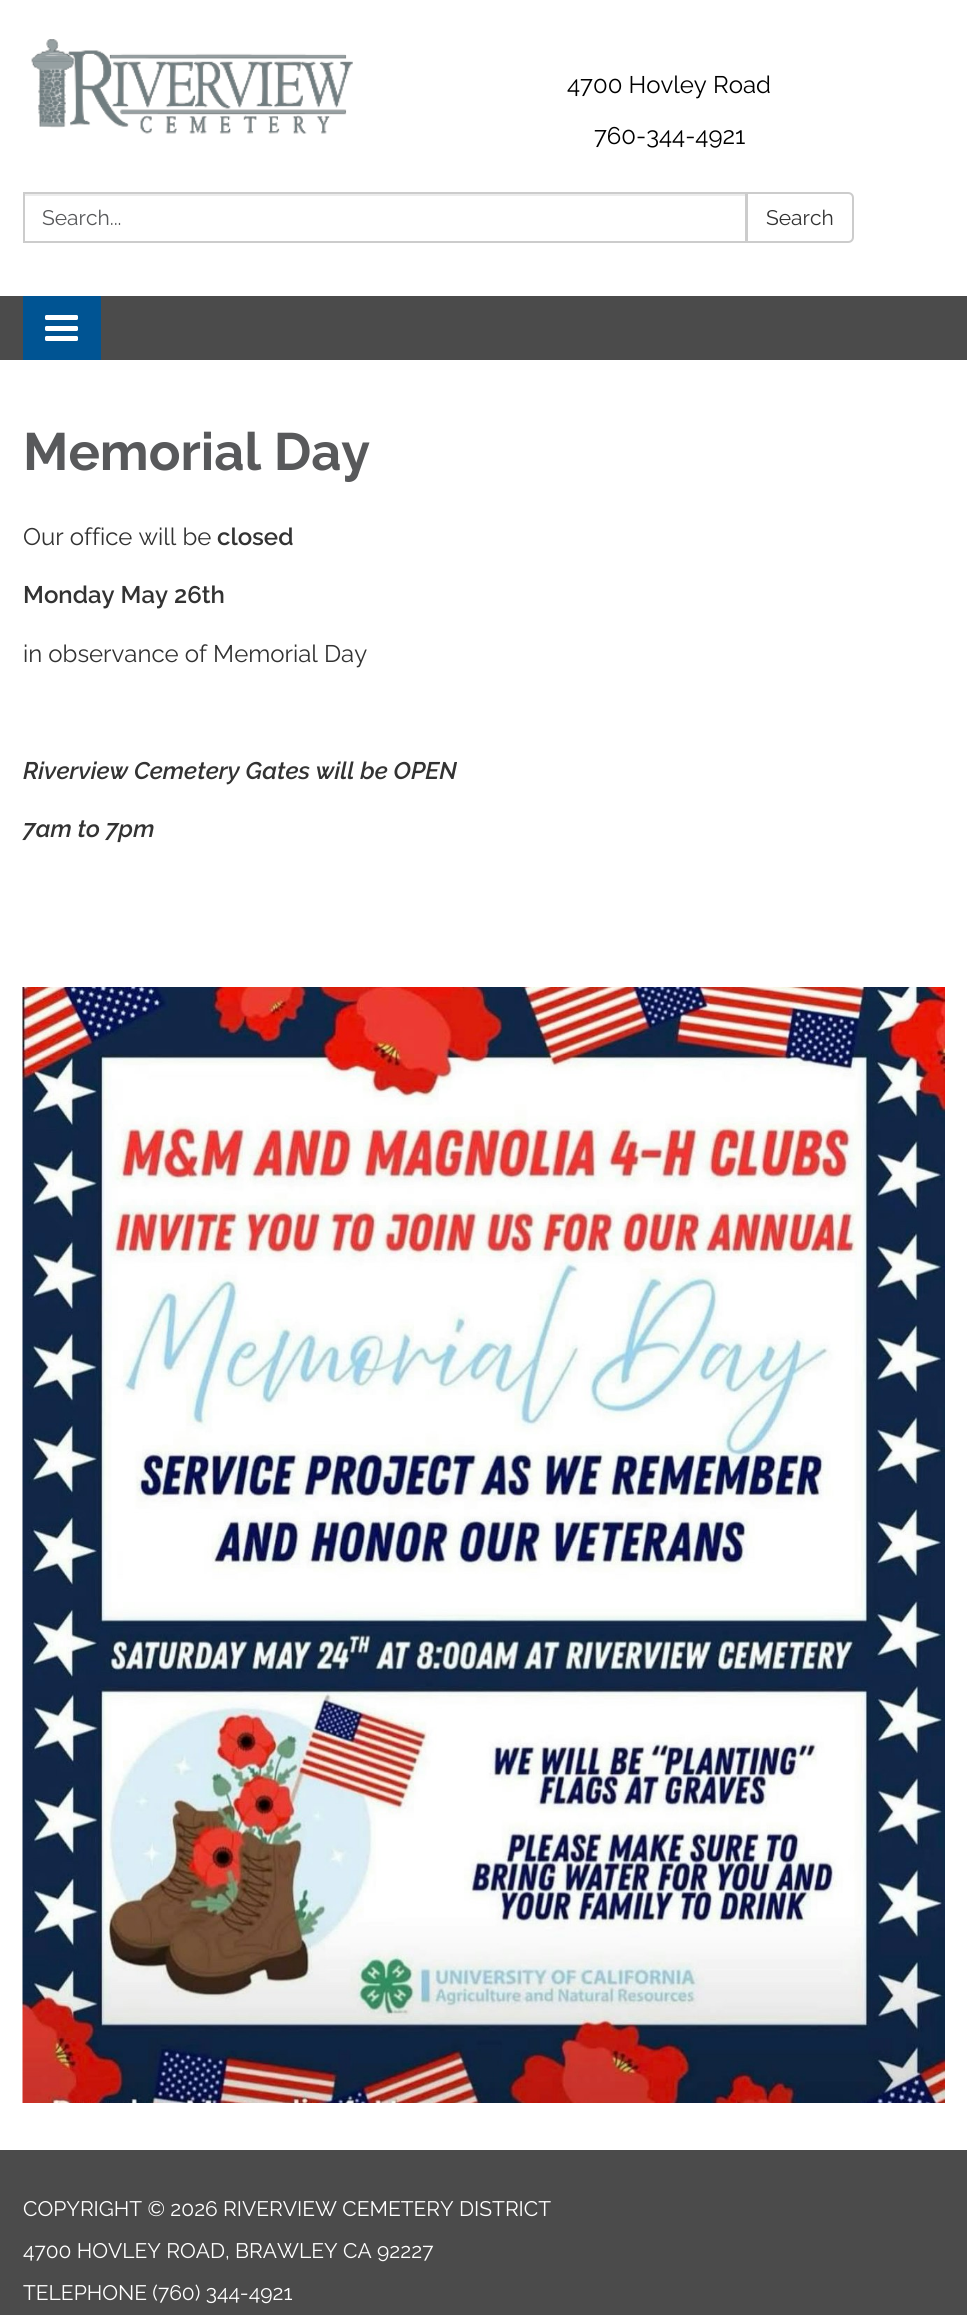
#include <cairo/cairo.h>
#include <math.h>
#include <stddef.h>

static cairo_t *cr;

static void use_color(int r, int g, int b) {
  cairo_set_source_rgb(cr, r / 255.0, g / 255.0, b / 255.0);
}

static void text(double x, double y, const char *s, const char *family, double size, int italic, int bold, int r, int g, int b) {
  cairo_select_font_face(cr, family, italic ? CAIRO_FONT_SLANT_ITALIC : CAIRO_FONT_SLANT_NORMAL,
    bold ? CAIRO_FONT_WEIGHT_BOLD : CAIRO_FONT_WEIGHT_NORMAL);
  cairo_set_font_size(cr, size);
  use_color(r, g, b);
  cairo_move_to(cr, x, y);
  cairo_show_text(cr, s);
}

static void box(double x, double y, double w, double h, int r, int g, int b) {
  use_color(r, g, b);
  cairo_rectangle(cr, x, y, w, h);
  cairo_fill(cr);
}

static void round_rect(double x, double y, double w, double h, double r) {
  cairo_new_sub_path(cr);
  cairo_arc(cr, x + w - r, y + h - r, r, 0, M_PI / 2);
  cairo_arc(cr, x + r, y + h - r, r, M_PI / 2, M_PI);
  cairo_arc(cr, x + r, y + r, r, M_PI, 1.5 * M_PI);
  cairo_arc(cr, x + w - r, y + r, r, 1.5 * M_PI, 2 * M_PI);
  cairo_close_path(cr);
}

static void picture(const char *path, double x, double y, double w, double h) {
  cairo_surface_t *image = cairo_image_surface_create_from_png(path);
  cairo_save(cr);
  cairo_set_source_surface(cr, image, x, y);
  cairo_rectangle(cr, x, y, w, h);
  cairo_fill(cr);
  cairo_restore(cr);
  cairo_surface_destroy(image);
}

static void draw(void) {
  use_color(75, 75, 75);
  cairo_paint(cr);
  box(0, 0, 967, 296, 255, 255, 255);
  picture("img_01.png", 31, 39, 322, 95);
  box(24, 194, 722, 2, 236, 236, 236);
  cairo_rectangle(cr, 24, 193, 722, 49);
  use_color(204, 204, 204);
  cairo_stroke(cr);
  use_color(255, 255, 255);
  cairo_new_path(cr);
  cairo_move_to(cr, 747, 193);
  cairo_line_to(cr, 848, 193);
  cairo_curve_to(cr, 851, 193, 853, 195, 853, 198);
  cairo_line_to(cr, 853, 237);
  cairo_curve_to(cr, 853, 240, 851, 242, 848, 242);
  cairo_line_to(cr, 747, 242);
  cairo_close_path(cr);
  cairo_fill_preserve(cr);
  use_color(204, 204, 204);
  cairo_stroke(cr);
  box(23, 296, 78, 64, 0, 84, 147);
  use_color(255, 255, 255);
  round_rect(45, 315, 33, 5, 1.5);
  cairo_fill(cr);
  round_rect(45, 326, 33, 5, 1.5);
  cairo_fill(cr);
  round_rect(45, 336, 33, 5, 1.5);
  cairo_fill(cr);
  box(0, 360, 967, 1790, 255, 255, 255);
  picture("img_02.png", 22, 987, 923, 1116);
  text(567, 93, "4700 Hovley Road", "Raleway", 24, 0, 0, 0, 0, 0);
  text(594, 144, "760-344-4921", "Raleway", 24, 0, 0, 0, 0, 0);
  text(42, 225, "Search...", "Raleway", 21, 0, 0, 88, 89, 91);
  text(766, 225, "Search", "Raleway", 21, 0, 0, 51, 51, 51);
  text(23, 470, "Memorial Day", "Raleway", 52.5, 0, 1, 88, 89, 91);
  text(23, 545, "Our office will be", "Raleway", 24, 0, 0, 51, 51, 51);
  text(217, 545, "closed", "Raleway SemiBold", 24, 0, 0, 51, 51, 51);
  text(23, 603, "Monday May 26th", "Raleway SemiBold", 24, 0, 0, 51, 51, 51);
  text(23, 662, "in observance of Memorial Day", "Raleway", 24, 0, 0, 51, 51, 51);
  text(23, 779, "Riverview Cemetery Gates will be OPEN", "Raleway SemiBold", 24, 1, 0, 51, 51, 51);
  text(23, 837, "7am to 7pm", "Raleway SemiBold", 24, 1, 0, 51, 51, 51);
  text(23, 2216, "COPYRIGHT © 2026 RIVERVIEW CEMETERY DISTRICT", "Raleway", 21, 0, 0, 255, 255, 255);
  text(23, 2258, "4700 HOVLEY ROAD, BRAWLEY CA 92227", "Raleway", 21, 0, 0, 255, 255, 255);
  text(23, 2300, "TELEPHONE (760) 344-4921", "Raleway", 21, 0, 0, 255, 255, 255);
}

int main(void) {
  cairo_surface_t *surface = cairo_image_surface_create(CAIRO_FORMAT_RGB24, 967, 2315);
  cr = cairo_create(surface);
  cairo_font_options_t *options = cairo_font_options_create();
  cairo_font_options_set_hint_metrics(options, CAIRO_HINT_METRICS_OFF);
  cairo_font_options_set_hint_style(options, CAIRO_HINT_STYLE_NONE);
  cairo_set_font_options(cr, options);
  cairo_set_miter_limit(cr, 4);
  draw();
  cairo_surface_write_to_png(surface, "out.png");
  cairo_font_options_destroy(options);
  cairo_destroy(cr);
  cairo_surface_destroy(surface);
  return 0;
}
